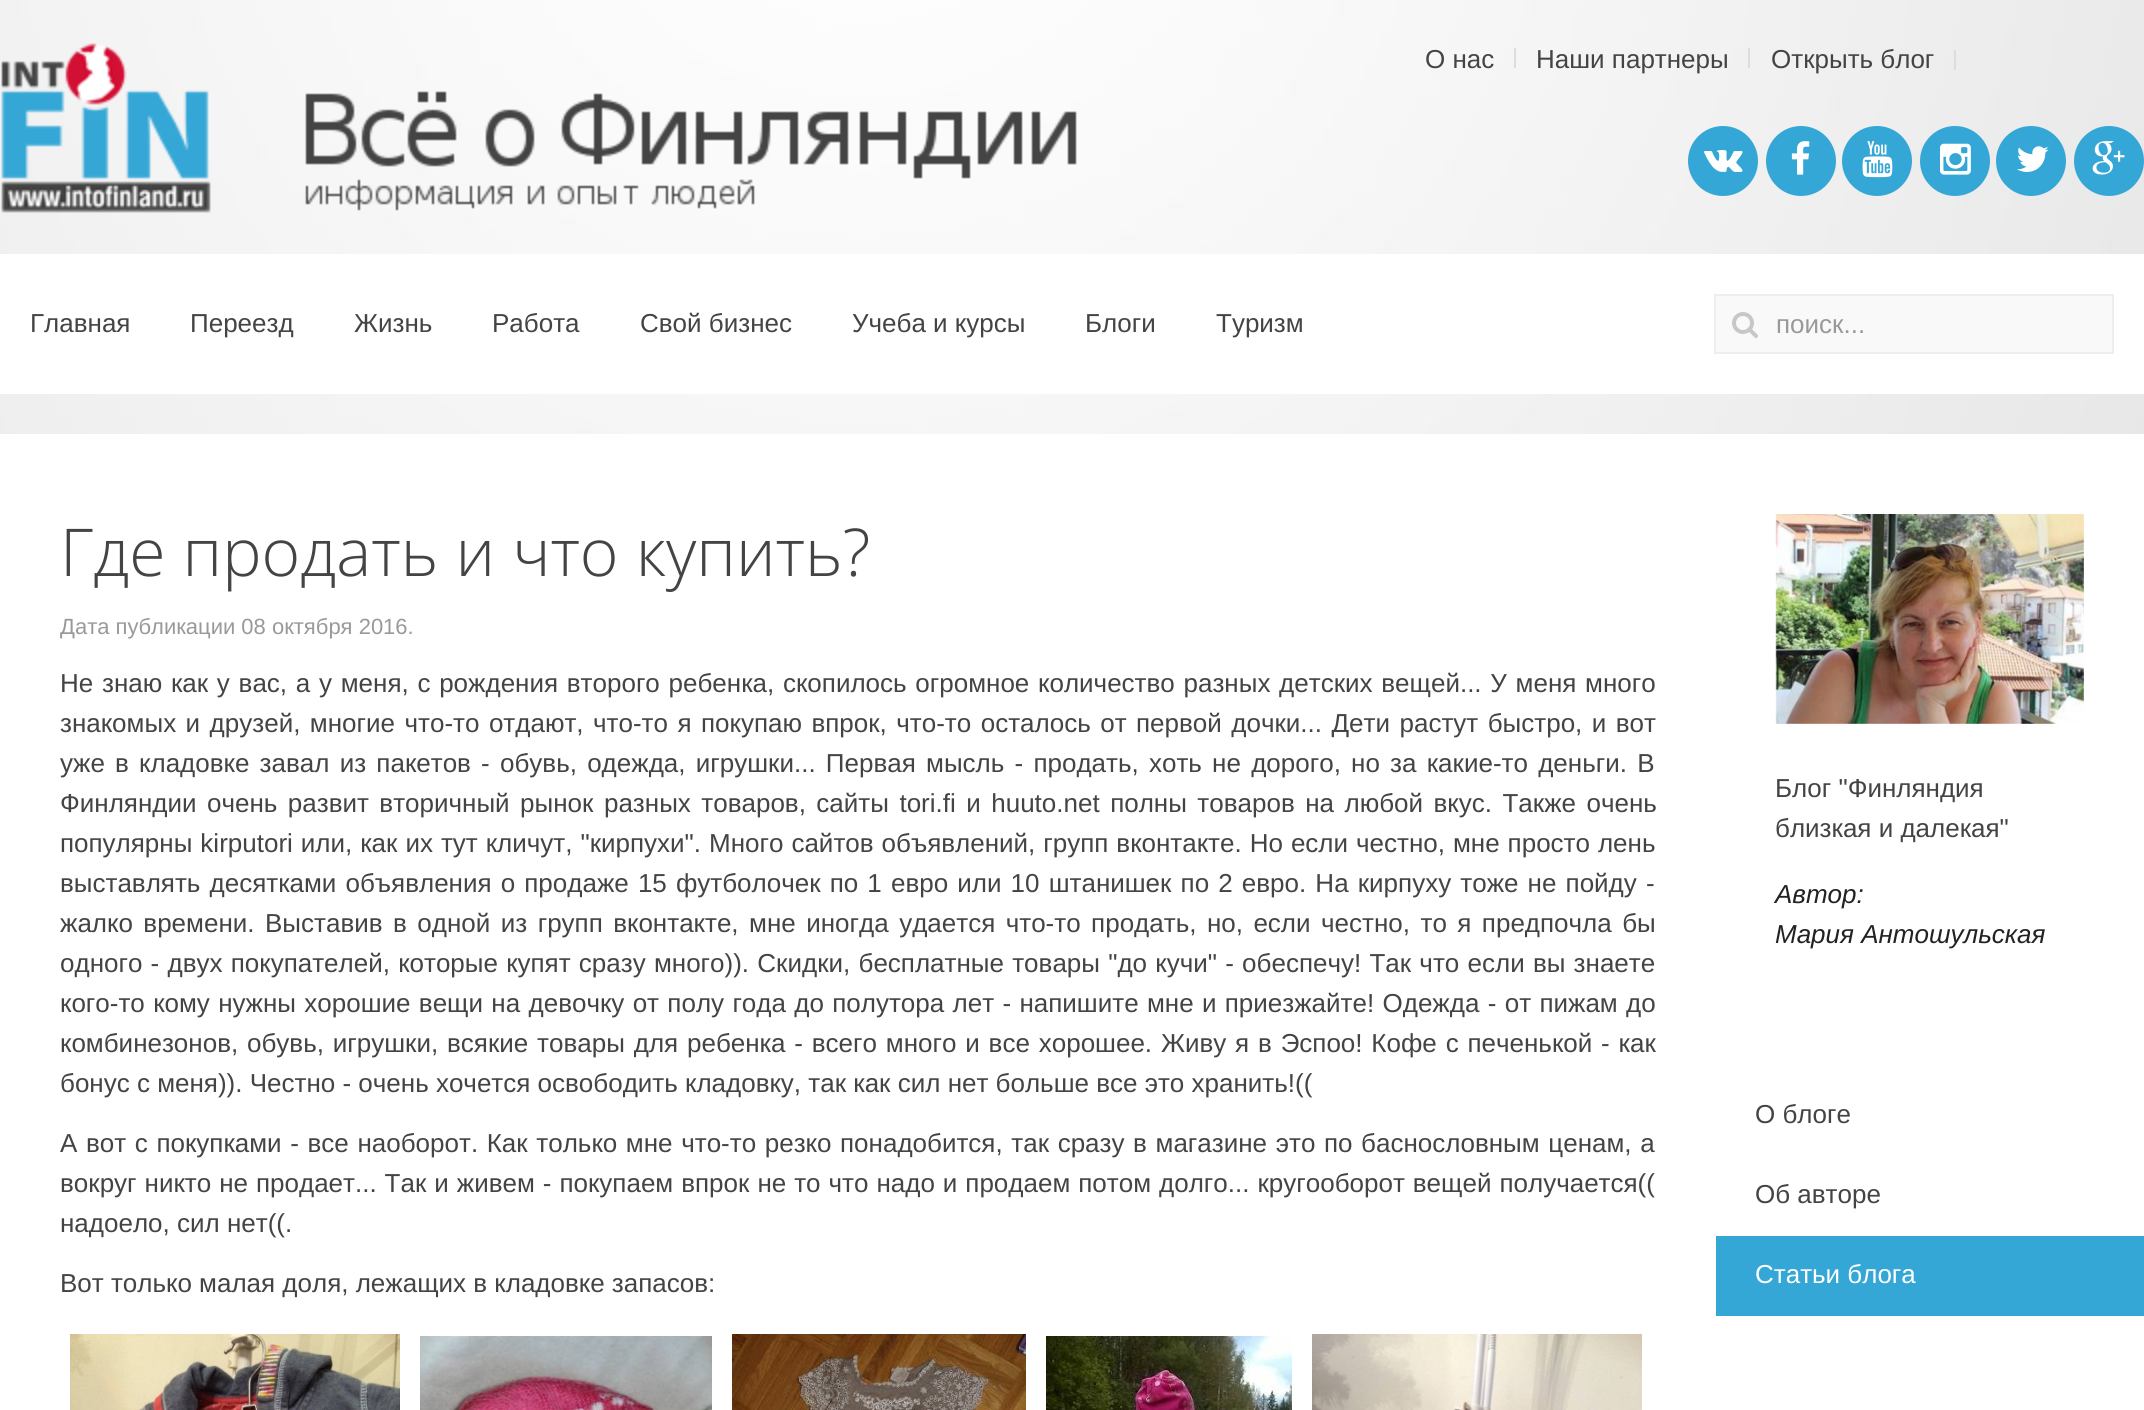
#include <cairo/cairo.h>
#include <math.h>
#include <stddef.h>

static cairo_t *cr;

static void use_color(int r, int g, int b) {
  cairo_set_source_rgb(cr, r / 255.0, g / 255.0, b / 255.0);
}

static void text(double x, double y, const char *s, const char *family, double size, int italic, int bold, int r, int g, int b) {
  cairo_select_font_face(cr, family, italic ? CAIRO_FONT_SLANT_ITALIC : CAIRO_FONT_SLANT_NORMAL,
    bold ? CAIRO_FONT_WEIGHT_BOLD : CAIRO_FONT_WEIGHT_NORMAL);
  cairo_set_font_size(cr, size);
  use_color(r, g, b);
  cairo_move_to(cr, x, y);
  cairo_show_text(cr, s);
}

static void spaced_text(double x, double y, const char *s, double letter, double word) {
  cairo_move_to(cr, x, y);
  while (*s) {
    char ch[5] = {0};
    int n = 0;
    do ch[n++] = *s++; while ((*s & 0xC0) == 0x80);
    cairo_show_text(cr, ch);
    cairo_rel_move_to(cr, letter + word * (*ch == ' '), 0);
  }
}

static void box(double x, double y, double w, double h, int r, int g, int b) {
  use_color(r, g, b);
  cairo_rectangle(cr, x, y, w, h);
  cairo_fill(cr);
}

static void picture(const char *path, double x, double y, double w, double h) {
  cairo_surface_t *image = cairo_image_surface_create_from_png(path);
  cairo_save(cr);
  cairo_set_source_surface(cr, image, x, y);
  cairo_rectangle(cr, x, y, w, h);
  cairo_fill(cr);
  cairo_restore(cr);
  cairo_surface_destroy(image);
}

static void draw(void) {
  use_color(255, 255, 255);
  cairo_paint(cr);
  picture("img_01.png", 0, 0, 2144, 434);
  picture("img_02.png", 1, 43, 210, 170);
  picture("img_03.png", 305, 91, 772, 120);
  box(1514, 48, 2, 20, 221, 221, 221);
  box(1748, 48, 2, 20, 221, 221, 221);
  box(1954, 50, 2, 20, 221, 221, 221);
  use_color(53, 167, 214);
  cairo_arc(cr, 1723, 161, 35, 0, 2 * M_PI);
  cairo_fill(cr);
  picture("img_04.png", 1704, 150, 39, 22);
  cairo_arc(cr, 1801, 161, 35, 0, 2 * M_PI);
  cairo_fill(cr);
  picture("img_05.png", 1791, 141, 19, 34);
  cairo_arc(cr, 1877, 161, 35, 0, 2 * M_PI);
  cairo_fill(cr);
  picture("img_06.png", 1862, 141, 31, 37);
  cairo_arc(cr, 1955, 161, 35, 0, 2 * M_PI);
  cairo_fill(cr);
  picture("img_07.png", 1940, 143, 31, 32);
  cairo_arc(cr, 2031, 161, 35, 0, 2 * M_PI);
  cairo_fill(cr);
  picture("img_08.png", 2017, 146, 32, 26);
  cairo_arc(cr, 2109, 161, 35, 0, 2 * M_PI);
  cairo_fill(cr);
  picture("img_09.png", 2092, 141, 33, 34);
  box(0, 254, 2144, 140, 255, 255, 255);
  use_color(249, 249, 249);
  cairo_rectangle(cr, 1715, 295, 398, 58);
  cairo_fill_preserve(cr);
  use_color(238, 238, 238);
  cairo_stroke(cr);
  picture("img_10.png", 1732, 312, 26, 26);
  picture("img_11.png", 70, 1334, 330, 76);
  picture("img_12.png", 420, 1336, 292, 74);
  picture("img_13.png", 732, 1334, 294, 76);
  picture("img_14.png", 1046, 1336, 246, 74);
  picture("img_15.png", 1312, 1334, 330, 76);
  picture("img_16.png", 1775, 514, 309, 210);
  box(1716, 1236, 428, 80, 53, 167, 214);
  text(1425, 68, "О нас", "Liberation Sans", 26, 0, 0, 68, 68, 68);
  text(1536, 68, "Наши партнеры", "Liberation Sans", 26, 0, 0, 68, 68, 68);
  text(1771, 68, "Открыть блог", "Liberation Sans", 26, 0, 0, 68, 68, 68);
  text(30, 332, "Главная", "Liberation Sans", 26, 0, 0, 68, 68, 68);
  text(190, 332, "Переезд", "Liberation Sans", 26, 0, 0, 68, 68, 68);
  text(354, 332, "Жизнь", "Liberation Sans", 26, 0, 0, 68, 68, 68);
  text(492, 332, "Работа", "Liberation Sans", 26, 0, 0, 68, 68, 68);
  text(640, 332, "Свой бизнес", "Liberation Sans", 26, 0, 0, 68, 68, 68);
  text(852, 332, "Учеба и курсы", "Liberation Sans", 26, 0, 0, 68, 68, 68);
  text(1085, 332, "Блоги", "Liberation Sans", 26, 0, 0, 68, 68, 68);
  text(1216, 332, "Туризм", "Liberation Sans", 26, 0, 0, 68, 68, 68);
  text(1776, 333, "поиск...", "Liberation Sans", 26, 0, 0, 153, 153, 153);
  text(60, 576, "Где продать и что купить?", "Open Sans Light", 66, 0, 0, 68, 68, 68);
  text(60, 634, "Дата публикации 08 октября 2016.", "Liberation Sans", 22, 0, 0, 153, 153, 153);
  cairo_set_font_size(cr, 26);
  use_color(68, 68, 68);
  spaced_text(60, 692, "Не знаю как у вас, а у меня, с рождения второго ребенка, скопилось огромное количество разных детских вещей... У меня много", 0, 1.5);
  spaced_text(60, 732, "знакомых и друзей, многие что-то отдают, что-то я покупаю впрок, что-то осталось от первой дочки... Дети растут быстро, и вот", 0, 2.25);
  spaced_text(60, 772, "уже в кладовке завал из пакетов - обувь, одежда, игрушки... Первая мысль - продать, хоть не дорого, но за какие-то деньги. В", 0, 3);
  spaced_text(60, 812, "Финляндии очень развит вторичный рынок разных товаров, сайты tori.fi и huuto.net полны товаров на любой вкус. Также очень", 0, 3.25);
  spaced_text(60, 852, "популярны kirputori или, как их тут кличут, \"кирпухи\". Много сайтов объявлений, групп вконтакте. Но если честно, мне просто лень", 0, 0.75);
  spaced_text(60, 892, "выставлять десятками объявления о продаже 15 футболочек по 1 евро или 10 штанишек по 2 евро. На кирпуху тоже не пойду -", 0, 1.9);
  spaced_text(60, 932, "жалко времени. Выставив в одной из групп вконтакте, мне иногда удается что-то продать, но, если честно, то я предпочла бы", 0, 3.25);
  spaced_text(60, 972, "одного - двух покупателей, которые купят сразу много)). Скидки, бесплатные товары \"до кучи\" - обеспечу! Так что если вы знаете", 0, 1);
  spaced_text(60, 1012, "кого-то кому нужны хорошие вещи на девочку от полу года до полутора лет - напишите мне и приезжайте! Одежда - от пижам до", 0, 1.1);
  spaced_text(60, 1052, "комбинезонов, обувь, игрушки, всякие товары для ребенка - всего много и все хорошее. Живу я в Эспоо! Кофе с печенькой - как", 0, 1.6);
  text(60, 1092, "бонус с меня)). Честно - очень хочется освободить кладовку, так как сил нет больше все это хранить!((", "Liberation Sans", 26, 0, 0, 68, 68, 68);
  spaced_text(60, 1152, "А вот с покупками - все наоборот. Как только мне что-то резко понадобится, так сразу в магазине это по баснословным ценам, а", 0, 1.4);
  spaced_text(60, 1192, "вокруг никто не продает... Так и живем - покупаем впрок не то что надо и продаем потом долго... кругооборот вещей получается((", 0, 0.75);
  text(60, 1232, "надоело, сил нет((.", "Liberation Sans", 26, 0, 0, 68, 68, 68);
  text(60, 1292, "Вот только малая доля, лежащих в кладовке запасов:", "Liberation Sans", 26, 0, 0, 68, 68, 68);
  text(1775, 797, "Блог \"Финляндия", "Liberation Sans", 26, 0, 0, 68, 68, 68);
  text(1775, 837, "близкая и далекая\"", "Liberation Sans", 26, 0, 0, 68, 68, 68);
  text(1775, 903, "Автор:", "Liberation Sans", 26, 1, 0, 34, 34, 34);
  text(1775, 943, "Мария Антошульская", "Liberation Sans", 26, 1, 0, 34, 34, 34);
  text(1755, 1123, "О блоге", "Liberation Sans", 26, 0, 0, 68, 68, 68);
  text(1755, 1203, "Об авторе", "Liberation Sans", 26, 0, 0, 68, 68, 68);
  text(1755, 1283, "Статьи блога", "Liberation Sans", 26, 0, 0, 255, 255, 255);
}

int main(void) {
  cairo_surface_t *surface = cairo_image_surface_create(CAIRO_FORMAT_RGB24, 2144, 1410);
  cr = cairo_create(surface);
  cairo_font_options_t *options = cairo_font_options_create();
  cairo_font_options_set_hint_metrics(options, CAIRO_HINT_METRICS_OFF);
  cairo_font_options_set_hint_style(options, CAIRO_HINT_STYLE_NONE);
  cairo_set_font_options(cr, options);
  cairo_set_miter_limit(cr, 4);
  draw();
  cairo_surface_write_to_png(surface, "out.png");
  cairo_font_options_destroy(options);
  cairo_destroy(cr);
  cairo_surface_destroy(surface);
  return 0;
}
